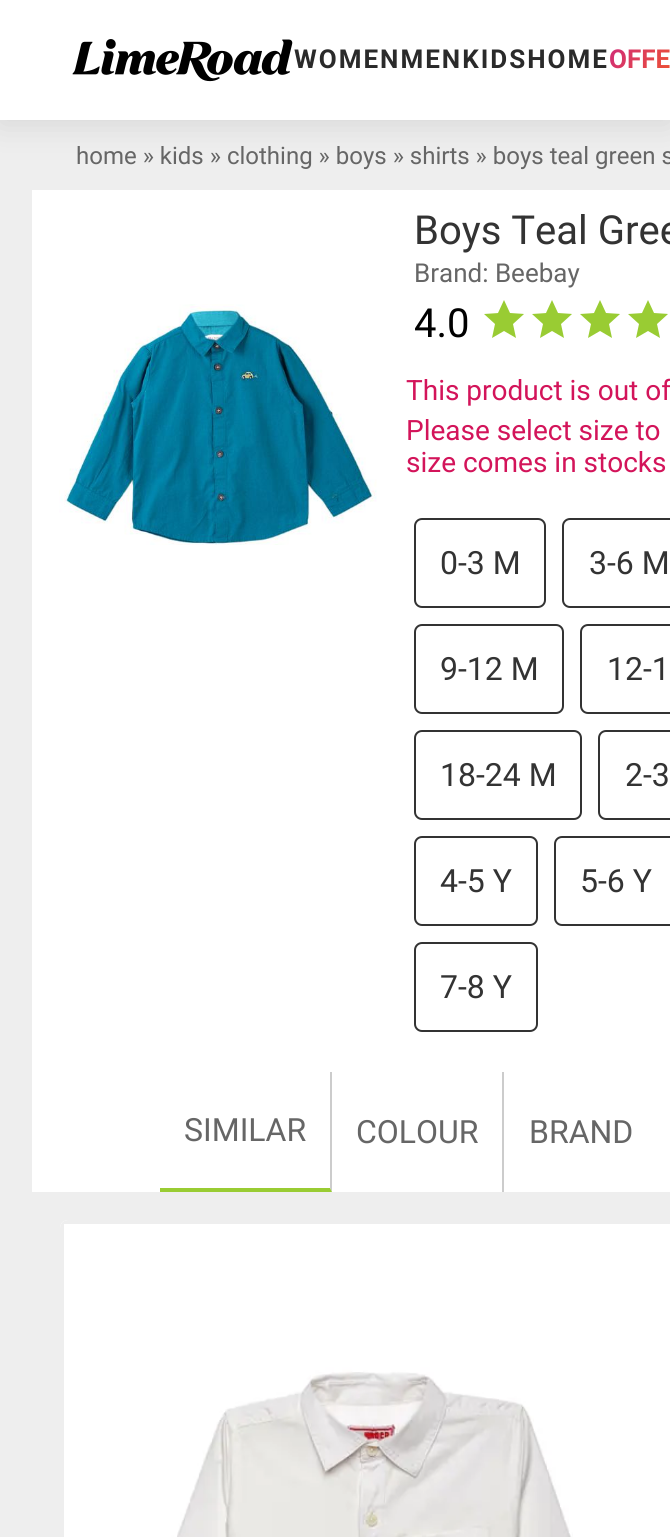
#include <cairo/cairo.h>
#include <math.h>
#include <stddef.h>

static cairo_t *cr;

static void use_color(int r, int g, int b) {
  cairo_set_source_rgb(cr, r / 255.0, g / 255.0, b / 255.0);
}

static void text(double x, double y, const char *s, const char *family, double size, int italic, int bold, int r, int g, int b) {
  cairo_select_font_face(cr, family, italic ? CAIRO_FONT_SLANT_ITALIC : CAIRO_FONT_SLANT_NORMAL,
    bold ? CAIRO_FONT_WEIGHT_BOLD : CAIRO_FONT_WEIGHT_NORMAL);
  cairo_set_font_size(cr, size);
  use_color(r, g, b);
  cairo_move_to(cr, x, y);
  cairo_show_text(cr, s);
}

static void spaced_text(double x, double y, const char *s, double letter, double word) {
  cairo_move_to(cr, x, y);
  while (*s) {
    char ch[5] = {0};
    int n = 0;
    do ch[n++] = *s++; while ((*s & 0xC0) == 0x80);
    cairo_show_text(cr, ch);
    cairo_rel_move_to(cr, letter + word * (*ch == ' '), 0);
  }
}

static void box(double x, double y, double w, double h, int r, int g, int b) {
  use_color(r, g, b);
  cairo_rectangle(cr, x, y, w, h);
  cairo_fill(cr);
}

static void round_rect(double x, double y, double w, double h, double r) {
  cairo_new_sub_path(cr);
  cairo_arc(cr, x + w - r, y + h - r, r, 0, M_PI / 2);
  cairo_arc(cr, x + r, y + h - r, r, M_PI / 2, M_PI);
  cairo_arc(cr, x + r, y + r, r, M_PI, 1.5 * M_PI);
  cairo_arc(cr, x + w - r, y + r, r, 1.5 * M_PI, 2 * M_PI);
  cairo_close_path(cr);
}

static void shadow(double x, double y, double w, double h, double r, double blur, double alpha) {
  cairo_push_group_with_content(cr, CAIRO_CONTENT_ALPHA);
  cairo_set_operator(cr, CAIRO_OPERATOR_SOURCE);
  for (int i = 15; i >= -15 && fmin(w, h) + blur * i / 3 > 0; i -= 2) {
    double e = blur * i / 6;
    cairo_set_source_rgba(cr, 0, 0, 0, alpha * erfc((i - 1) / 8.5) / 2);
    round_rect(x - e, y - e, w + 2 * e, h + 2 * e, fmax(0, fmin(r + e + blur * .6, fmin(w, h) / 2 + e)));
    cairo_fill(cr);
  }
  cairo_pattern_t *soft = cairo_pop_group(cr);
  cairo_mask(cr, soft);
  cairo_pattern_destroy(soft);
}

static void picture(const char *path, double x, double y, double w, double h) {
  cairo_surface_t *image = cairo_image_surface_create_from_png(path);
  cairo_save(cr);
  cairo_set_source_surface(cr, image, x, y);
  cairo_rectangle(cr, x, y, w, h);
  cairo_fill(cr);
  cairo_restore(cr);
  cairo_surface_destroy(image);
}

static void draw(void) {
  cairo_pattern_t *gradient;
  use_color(238, 238, 238);
  cairo_paint(cr);
  use_color(85, 85, 85);
  shadow(0, 4, 670, 120, 0, 16, 0.16);
  box(0, 0, 670, 120, 255, 255, 255);
  picture("img_01.png", 72, 39, 221, 43);
  box(32, 190, 638, 1002, 255, 255, 255);
  picture("img_02.png", 59, 304, 318, 241);
  use_color(153, 204, 51);
  cairo_new_path(cr);
  cairo_move_to(cr, 504, 331);
  cairo_line_to(cr, 516, 338);
  cairo_line_to(cr, 513, 324);
  cairo_line_to(cr, 524, 314);
  cairo_line_to(cr, 510, 313);
  cairo_line_to(cr, 504, 300);
  cairo_line_to(cr, 498, 313);
  cairo_line_to(cr, 484, 314);
  cairo_line_to(cr, 495, 324);
  cairo_line_to(cr, 492, 338);
  cairo_close_path(cr);
  cairo_fill(cr);
  cairo_new_path(cr);
  cairo_move_to(cr, 552, 331);
  cairo_line_to(cr, 564, 338);
  cairo_line_to(cr, 561, 324);
  cairo_line_to(cr, 572, 314);
  cairo_line_to(cr, 558, 313);
  cairo_line_to(cr, 552, 300);
  cairo_line_to(cr, 546, 313);
  cairo_line_to(cr, 532, 314);
  cairo_line_to(cr, 543, 324);
  cairo_line_to(cr, 540, 338);
  cairo_close_path(cr);
  cairo_fill(cr);
  cairo_new_path(cr);
  cairo_move_to(cr, 600, 331);
  cairo_line_to(cr, 612, 338);
  cairo_line_to(cr, 609, 324);
  cairo_line_to(cr, 620, 314);
  cairo_line_to(cr, 606, 313);
  cairo_line_to(cr, 600, 300);
  cairo_line_to(cr, 594, 313);
  cairo_line_to(cr, 580, 314);
  cairo_line_to(cr, 591, 324);
  cairo_line_to(cr, 588, 338);
  cairo_close_path(cr);
  cairo_fill(cr);
  cairo_new_path(cr);
  cairo_move_to(cr, 648, 331);
  cairo_line_to(cr, 660, 338);
  cairo_line_to(cr, 657, 324);
  cairo_line_to(cr, 668, 314);
  cairo_line_to(cr, 654, 313);
  cairo_line_to(cr, 648, 300);
  cairo_line_to(cr, 642, 313);
  cairo_line_to(cr, 628, 314);
  cairo_line_to(cr, 639, 324);
  cairo_line_to(cr, 636, 338);
  cairo_close_path(cr);
  cairo_fill(cr);
  round_rect(415, 519, 130, 88, 7);
  use_color(51, 51, 51);
  cairo_stroke(cr);
  round_rect(563, 519, 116, 88, 7);
  cairo_stroke(cr);
  round_rect(415, 625, 148, 88, 7);
  cairo_stroke(cr);
  round_rect(581, 625, 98, 88, 7);
  cairo_stroke(cr);
  round_rect(415, 731, 166, 88, 7);
  cairo_stroke(cr);
  round_rect(599, 731, 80, 88, 7);
  cairo_stroke(cr);
  round_rect(415, 837, 122, 88, 7);
  cairo_stroke(cr);
  round_rect(555, 837, 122, 88, 7);
  cairo_stroke(cr);
  round_rect(415, 943, 122, 88, 7);
  cairo_stroke(cr);
  use_color(204, 204, 204);
  cairo_new_path(cr);
  cairo_move_to(cr, 332, 1072);
  cairo_line_to(cr, 332, 1192);
  cairo_line_to(cr, 330, 1188);
  cairo_line_to(cr, 330, 1072);
  cairo_close_path(cr);
  cairo_fill(cr);
  use_color(153, 204, 51);
  cairo_new_path(cr);
  cairo_move_to(cr, 332, 1192);
  cairo_line_to(cr, 160, 1192);
  cairo_line_to(cr, 160, 1188);
  cairo_line_to(cr, 330, 1188);
  cairo_close_path(cr);
  cairo_fill(cr);
  box(502, 1072, 2, 120, 204, 204, 204);
  use_color(255, 255, 255);
  cairo_new_path(cr);
  cairo_move_to(cr, 68, 1220);
  cairo_line_to(cr, 670, 1220);
  cairo_line_to(cr, 670, 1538);
  cairo_line_to(cr, 60, 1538);
  cairo_line_to(cr, 60, 1228);
  cairo_curve_to(cr, 60, 1223.5, 63.5, 1220, 68, 1220);
  cairo_close_path(cr);
  cairo_fill(cr);
  round_rect(62, 1222, 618, 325, 6);
  use_color(238, 238, 238);
  cairo_set_line_width(cr, 4);
  cairo_stroke(cr);
  picture("img_03.png", 64, 1224, 509, 313);
  cairo_select_font_face(cr, "Roboto", CAIRO_FONT_SLANT_NORMAL, CAIRO_FONT_WEIGHT_BOLD);
  cairo_set_font_size(cr, 26);
  use_color(42, 42, 42);
  spaced_text(294, 68, "WOMENMENKIDSHOME", 2, 0);
  gradient = cairo_pattern_create_linear(612, 30, 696, 84);
  cairo_pattern_add_color_stop_rgba(gradient, 0, 0.808, 0.161, 0.494, 1);
  cairo_pattern_add_color_stop_rgba(gradient, 0.73, 0.929, 0.318, 0.2, 1);
  cairo_set_source(cr, gradient);
  cairo_pattern_destroy(gradient);
  cairo_move_to(cr, 609, 68);
  cairo_show_text(cr, "OFFE");
  text(76, 164, "home » kids » clothing » boys » shirts » boys teal green s", "Roboto", 24, 0, 0, 102, 102, 102);
  text(414, 244, "Boys Teal Gree", "Roboto", 40, 0, 0, 51, 51, 51);
  text(414, 282, "Brand: Beebay", "Roboto", 26, 0, 0, 102, 102, 102);
  text(414, 337, "4.0", "Roboto", 40, 0, 0, 0, 0, 0);
  text(406, 400, "This product is out of", "Roboto", 28, 0, 0, 211, 20, 90);
  text(406, 440, "Please select size to", "Roboto", 28, 0, 0, 211, 20, 90);
  text(406, 472, "size comes in stocks", "Roboto", 28, 0, 0, 211, 20, 90);
  text(440, 574, "0-3 M", "Roboto", 32, 0, 0, 51, 51, 51);
  text(589, 574, "3-6 M", "Roboto", 32, 0, 0, 51, 51, 51);
  text(440, 680, "9-12 M", "Roboto", 32, 0, 0, 51, 51, 51);
  text(607, 680, "12-1", "Roboto", 32, 0, 0, 51, 51, 51);
  text(440, 786, "18-24 M", "Roboto", 32, 0, 0, 51, 51, 51);
  text(625, 786, "2-3", "Roboto", 32, 0, 0, 51, 51, 51);
  text(440, 892, "4-5 Y", "Roboto", 32, 0, 0, 51, 51, 51);
  text(580, 892, "5-6 Y", "Roboto", 32, 0, 0, 51, 51, 51);
  text(440, 998, "7-8 Y", "Roboto", 32, 0, 0, 51, 51, 51);
  text(184, 1141, "SIMILAR", "Roboto", 32, 0, 0, 102, 102, 102);
  text(356, 1143, "COLOUR", "Roboto", 32, 0, 0, 102, 102, 102);
  text(529, 1143, "BRAND", "Roboto", 32, 0, 0, 102, 102, 102);
}

int main(void) {
  cairo_surface_t *surface = cairo_image_surface_create(CAIRO_FORMAT_RGB24, 670, 1537);
  cr = cairo_create(surface);
  cairo_font_options_t *options = cairo_font_options_create();
  cairo_font_options_set_hint_metrics(options, CAIRO_HINT_METRICS_OFF);
  cairo_font_options_set_hint_style(options, CAIRO_HINT_STYLE_NONE);
  cairo_set_font_options(cr, options);
  cairo_set_miter_limit(cr, 4);
  draw();
  cairo_surface_write_to_png(surface, "out.png");
  cairo_font_options_destroy(options);
  cairo_destroy(cr);
  cairo_surface_destroy(surface);
  return 0;
}
